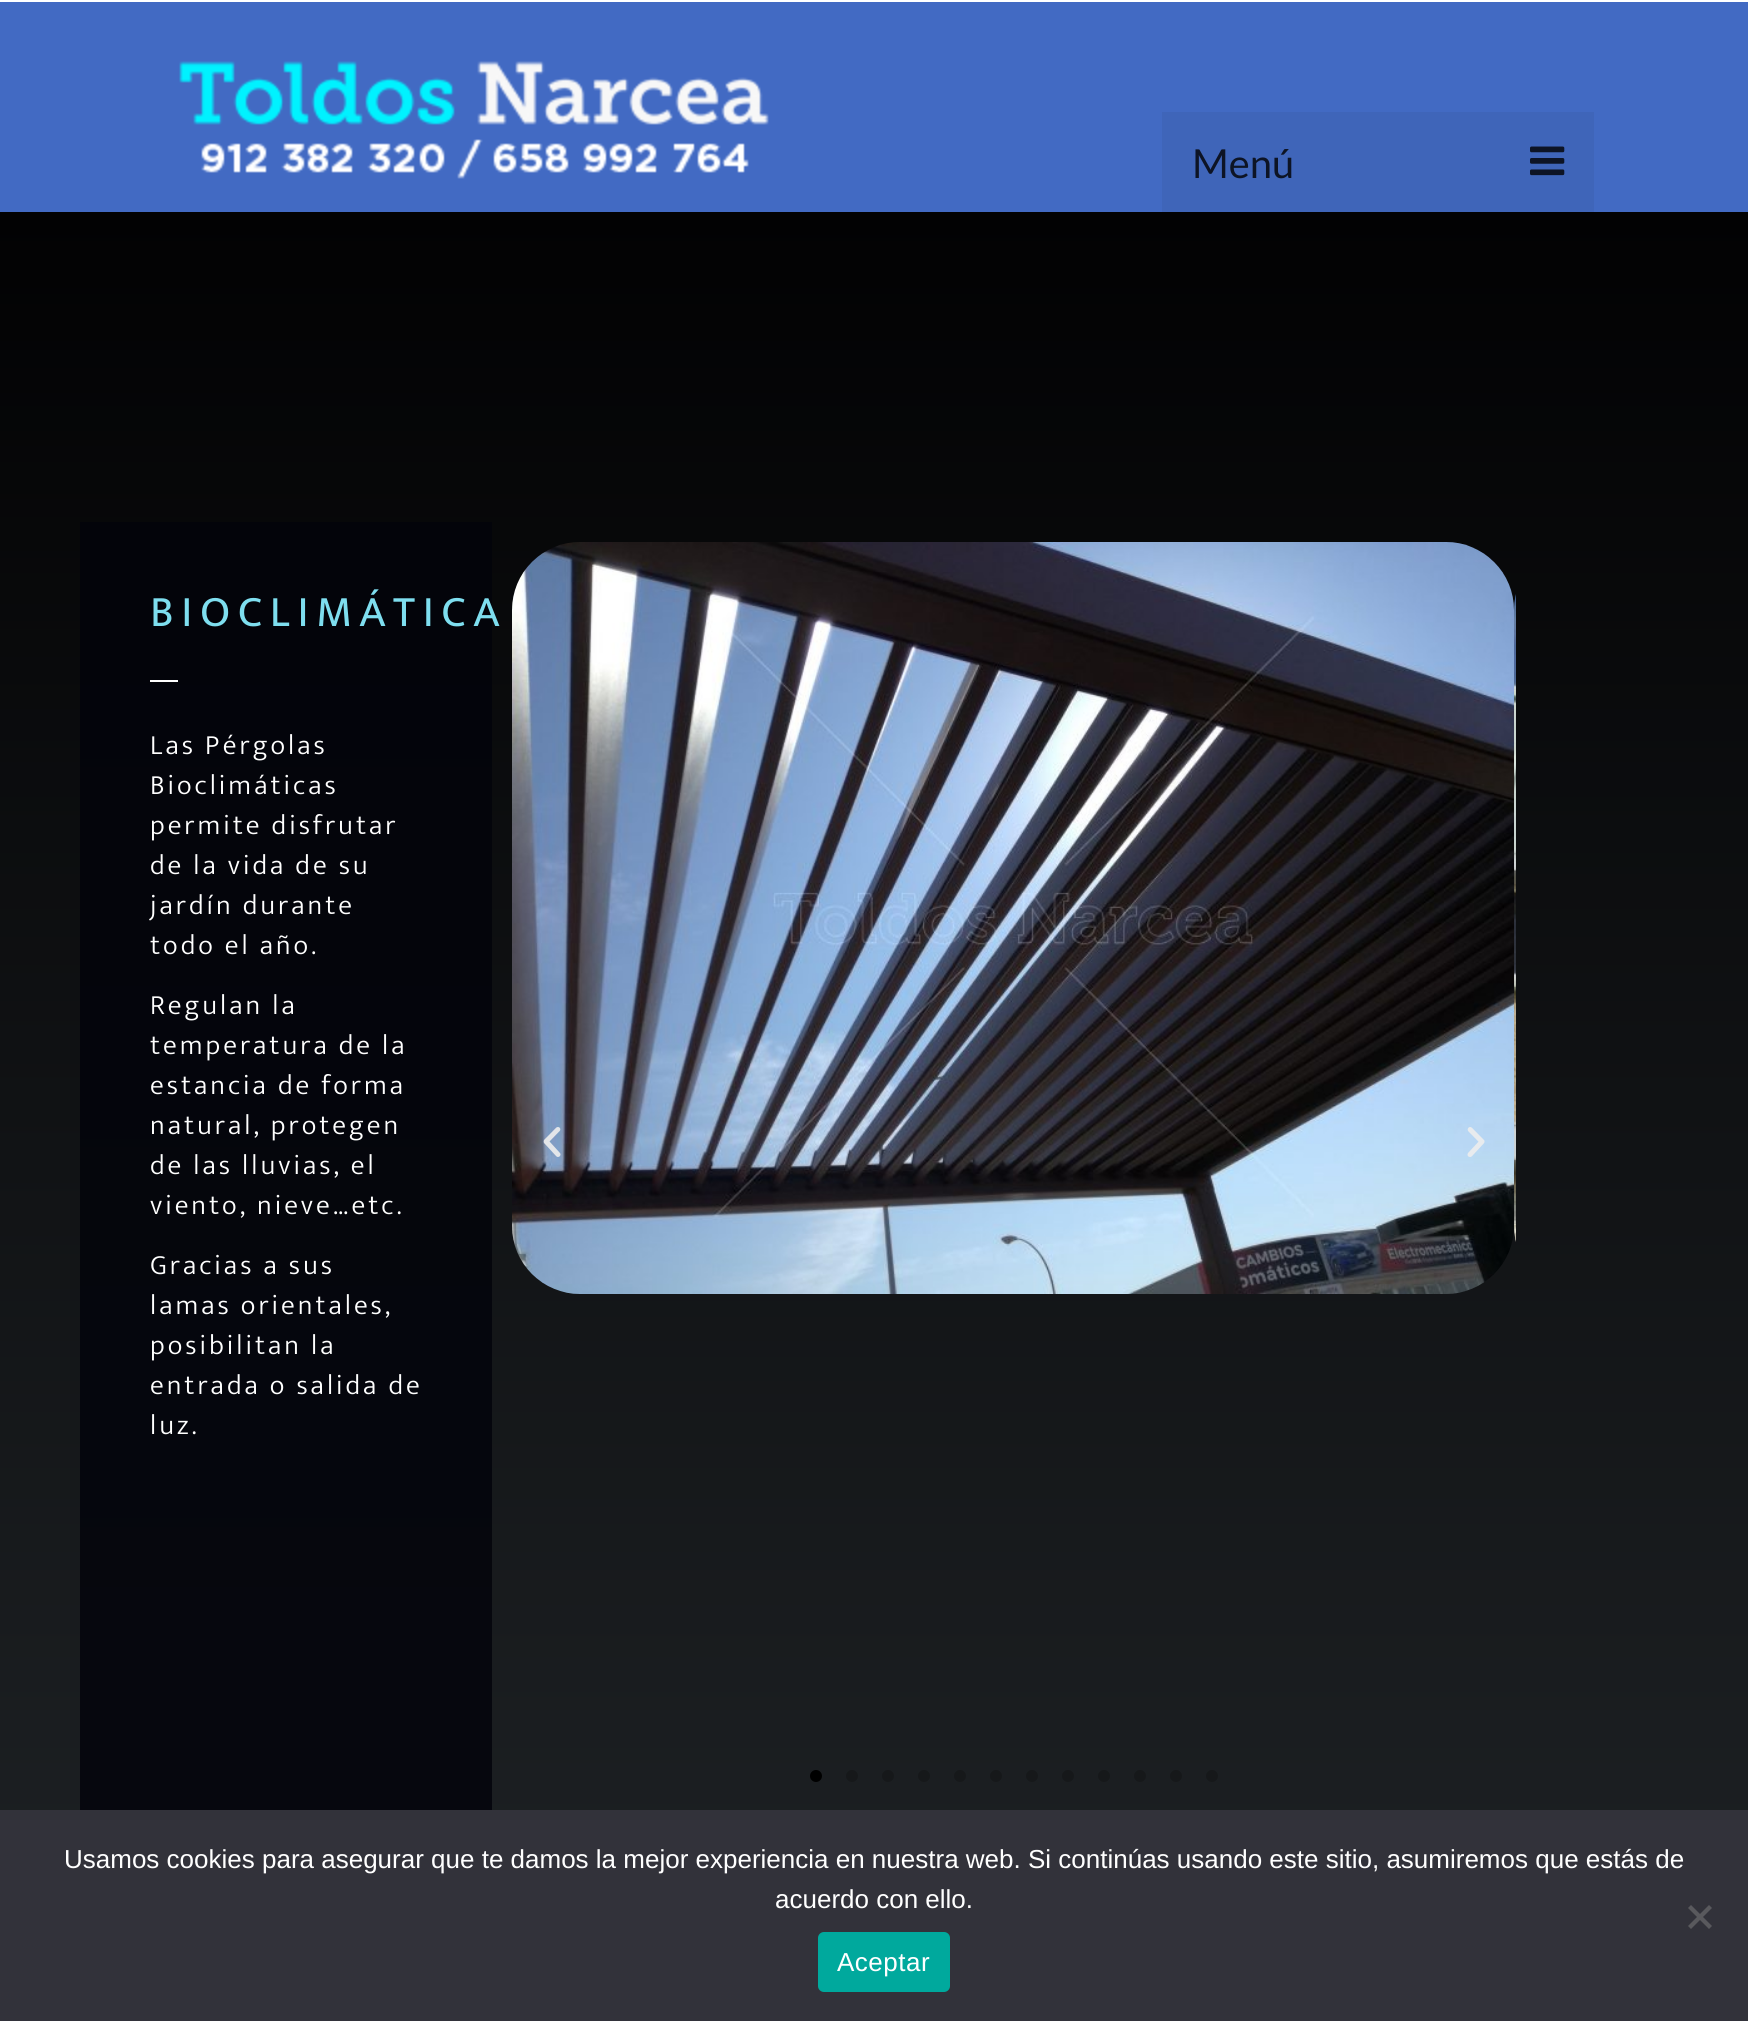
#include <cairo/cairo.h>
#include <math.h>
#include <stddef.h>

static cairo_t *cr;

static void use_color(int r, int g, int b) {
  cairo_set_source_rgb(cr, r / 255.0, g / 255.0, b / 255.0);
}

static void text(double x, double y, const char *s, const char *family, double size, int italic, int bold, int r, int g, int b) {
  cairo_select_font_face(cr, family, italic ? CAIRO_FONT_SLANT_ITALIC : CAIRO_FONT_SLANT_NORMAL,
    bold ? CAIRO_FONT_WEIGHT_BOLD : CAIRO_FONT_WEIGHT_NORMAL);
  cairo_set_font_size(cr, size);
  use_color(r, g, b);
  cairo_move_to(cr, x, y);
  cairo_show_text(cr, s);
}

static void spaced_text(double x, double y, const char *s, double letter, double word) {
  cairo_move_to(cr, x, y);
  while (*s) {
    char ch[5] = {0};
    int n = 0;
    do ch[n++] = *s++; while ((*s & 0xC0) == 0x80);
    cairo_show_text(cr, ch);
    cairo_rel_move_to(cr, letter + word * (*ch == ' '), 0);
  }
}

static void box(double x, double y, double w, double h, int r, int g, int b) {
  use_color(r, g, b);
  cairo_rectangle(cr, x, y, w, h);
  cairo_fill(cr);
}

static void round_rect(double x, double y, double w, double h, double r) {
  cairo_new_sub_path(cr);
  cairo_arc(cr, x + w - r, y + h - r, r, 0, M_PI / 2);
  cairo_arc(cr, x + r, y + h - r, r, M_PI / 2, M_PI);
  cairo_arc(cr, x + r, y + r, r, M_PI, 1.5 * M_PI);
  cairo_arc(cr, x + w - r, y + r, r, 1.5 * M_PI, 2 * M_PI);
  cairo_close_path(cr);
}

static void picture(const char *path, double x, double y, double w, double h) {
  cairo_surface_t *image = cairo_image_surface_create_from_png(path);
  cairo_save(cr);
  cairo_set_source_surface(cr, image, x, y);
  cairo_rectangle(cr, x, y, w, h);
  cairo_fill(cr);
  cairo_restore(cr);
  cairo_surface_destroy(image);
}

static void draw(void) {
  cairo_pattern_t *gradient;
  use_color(66, 106, 195);
  cairo_paint(cr);
  box(0, 0, 1748, 2, 255, 255, 255);
  picture("img_01.png", 179, 61, 590, 118);
  box(1162, 112, 432, 100, 63, 101, 185);
  picture("img_02.png", 1530, 146, 35, 30);
  gradient = cairo_pattern_create_linear(874, 212, 874, 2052);
  cairo_pattern_add_color_stop_rgba(gradient, 0, 0.008, 0.008, 0.012, 1);
  cairo_pattern_add_color_stop_rgba(gradient, 1, 0.122, 0.137, 0.149, 1);
  cairo_set_source(cr, gradient);
  cairo_pattern_destroy(gradient);
  cairo_rectangle(cr, 0, 212, 1748, 1598);
  cairo_fill(cr);
  gradient = cairo_pattern_create_linear(874, 212, 874, 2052);
  cairo_pattern_add_color_stop_rgba(gradient, 0, 0.008, 0.012, 0.035, 1);
  cairo_pattern_add_color_stop_rgba(gradient, 1, 0.027, 0.031, 0.059, 1);
  cairo_set_source(cr, gradient);
  cairo_pattern_destroy(gradient);
  cairo_rectangle(cr, 80, 522, 412, 1288);
  cairo_fill(cr);
  box(150, 680, 28, 2, 255, 255, 255);
  picture("img_03.png", 512, 542, 1002, 752);
  picture("img_04.png", 1514, 594, 2, 648);
  picture("img_05.png", 543, 1127, 18, 30);
  picture("img_06.png", 1467, 1127, 18, 30);
  use_color(0, 0, 0);
  cairo_arc(cr, 816, 1776, 6, 0, 2 * M_PI);
  cairo_fill(cr);
  use_color(22, 24, 26);
  cairo_arc(cr, 852, 1776, 6, 0, 2 * M_PI);
  cairo_fill(cr);
  cairo_arc(cr, 888, 1776, 6, 0, 2 * M_PI);
  cairo_fill(cr);
  cairo_arc(cr, 924, 1776, 6, 0, 2 * M_PI);
  cairo_fill(cr);
  cairo_arc(cr, 960, 1776, 6, 0, 2 * M_PI);
  cairo_fill(cr);
  cairo_arc(cr, 996, 1776, 6, 0, 2 * M_PI);
  cairo_fill(cr);
  cairo_arc(cr, 1032, 1776, 6, 0, 2 * M_PI);
  cairo_fill(cr);
  cairo_arc(cr, 1068, 1776, 6, 0, 2 * M_PI);
  cairo_fill(cr);
  cairo_arc(cr, 1104, 1776, 6, 0, 2 * M_PI);
  cairo_fill(cr);
  cairo_arc(cr, 1140, 1776, 6, 0, 2 * M_PI);
  cairo_fill(cr);
  cairo_arc(cr, 1176, 1776, 6, 0, 2 * M_PI);
  cairo_fill(cr);
  cairo_arc(cr, 1212, 1776, 6, 0, 2 * M_PI);
  cairo_fill(cr);
  box(0, 1810, 1748, 211, 50, 50, 58);
  use_color(89, 89, 93);
  cairo_new_path(cr);
  cairo_move_to(cr, 1709, 1905);
  cairo_line_to(cr, 1712, 1908);
  cairo_line_to(cr, 1691, 1929);
  cairo_line_to(cr, 1688, 1926);
  cairo_close_path(cr);
  cairo_fill(cr);
  cairo_new_path(cr);
  cairo_move_to(cr, 1688, 1908);
  cairo_line_to(cr, 1691, 1905);
  cairo_line_to(cr, 1712, 1926);
  cairo_line_to(cr, 1709, 1929);
  cairo_close_path(cr);
  cairo_fill(cr);
  use_color(0, 169, 157);
  round_rect(818, 1932, 132, 60, 6);
  cairo_fill(cr);
  text(1192, 178, "Menú", "Lato", 40, 0, 0, 13, 20, 37);
  cairo_select_font_face(cr, "Mukta", CAIRO_FONT_SLANT_NORMAL, CAIRO_FONT_WEIGHT_NORMAL);
  cairo_set_font_size(cr, 44);
  use_color(126, 222, 239);
  spaced_text(150, 626, "BIOCLIMÁTICA", 7.6, 0);
  cairo_select_font_face(cr, "Mukta Light", CAIRO_FONT_SLANT_NORMAL, CAIRO_FONT_WEIGHT_NORMAL);
  cairo_set_font_size(cr, 28);
  use_color(255, 255, 255);
  spaced_text(150, 754, "Las Pérgolas", 3, 0);
  spaced_text(150, 794, "Bioclimáticas", 3, 0);
  spaced_text(150, 834, "permite disfrutar", 3, 0);
  spaced_text(150, 874, "de la vida de su", 3, 0);
  spaced_text(150, 914, "jardín durante", 3, 0);
  spaced_text(150, 954, "todo el año.", 3, 0);
  spaced_text(150, 1014, "Regulan la", 3, 0);
  spaced_text(150, 1054, "temperatura de la", 3, 0);
  spaced_text(150, 1094, "estancia de forma", 3, 0);
  spaced_text(150, 1134, "natural, protegen", 3, 0);
  spaced_text(150, 1174, "de las lluvias, el", 3, 0);
  spaced_text(150, 1214, "viento, nieve…etc.", 3, 0);
  spaced_text(150, 1274, "Gracias a sus", 3, 0);
  spaced_text(150, 1314, "lamas orientales,", 3, 0);
  spaced_text(150, 1354, "posibilitan la", 3, 0);
  spaced_text(150, 1394, "entrada o salida de", 3, 0);
  spaced_text(150, 1434, "luz.", 3, 0);
  text(64, 1868, "Usamos cookies para asegurar que te damos la mejor experiencia en nuestra web. Si continúas usando este sitio, asumiremos que estás de", "Liberation Sans", 26, 0, 0, 255, 255, 255);
  text(775, 1908, "acuerdo con ello.", "Liberation Sans", 26, 0, 0, 255, 255, 255);
  spaced_text(837, 1971, "Aceptar", 0.5, 0);
}

int main(void) {
  cairo_surface_t *surface = cairo_image_surface_create(CAIRO_FORMAT_RGB24, 1748, 2021);
  cr = cairo_create(surface);
  cairo_font_options_t *options = cairo_font_options_create();
  cairo_font_options_set_hint_metrics(options, CAIRO_HINT_METRICS_OFF);
  cairo_font_options_set_hint_style(options, CAIRO_HINT_STYLE_NONE);
  cairo_set_font_options(cr, options);
  cairo_set_miter_limit(cr, 4);
  draw();
  cairo_surface_write_to_png(surface, "out.png");
  cairo_font_options_destroy(options);
  cairo_destroy(cr);
  cairo_surface_destroy(surface);
  return 0;
}
